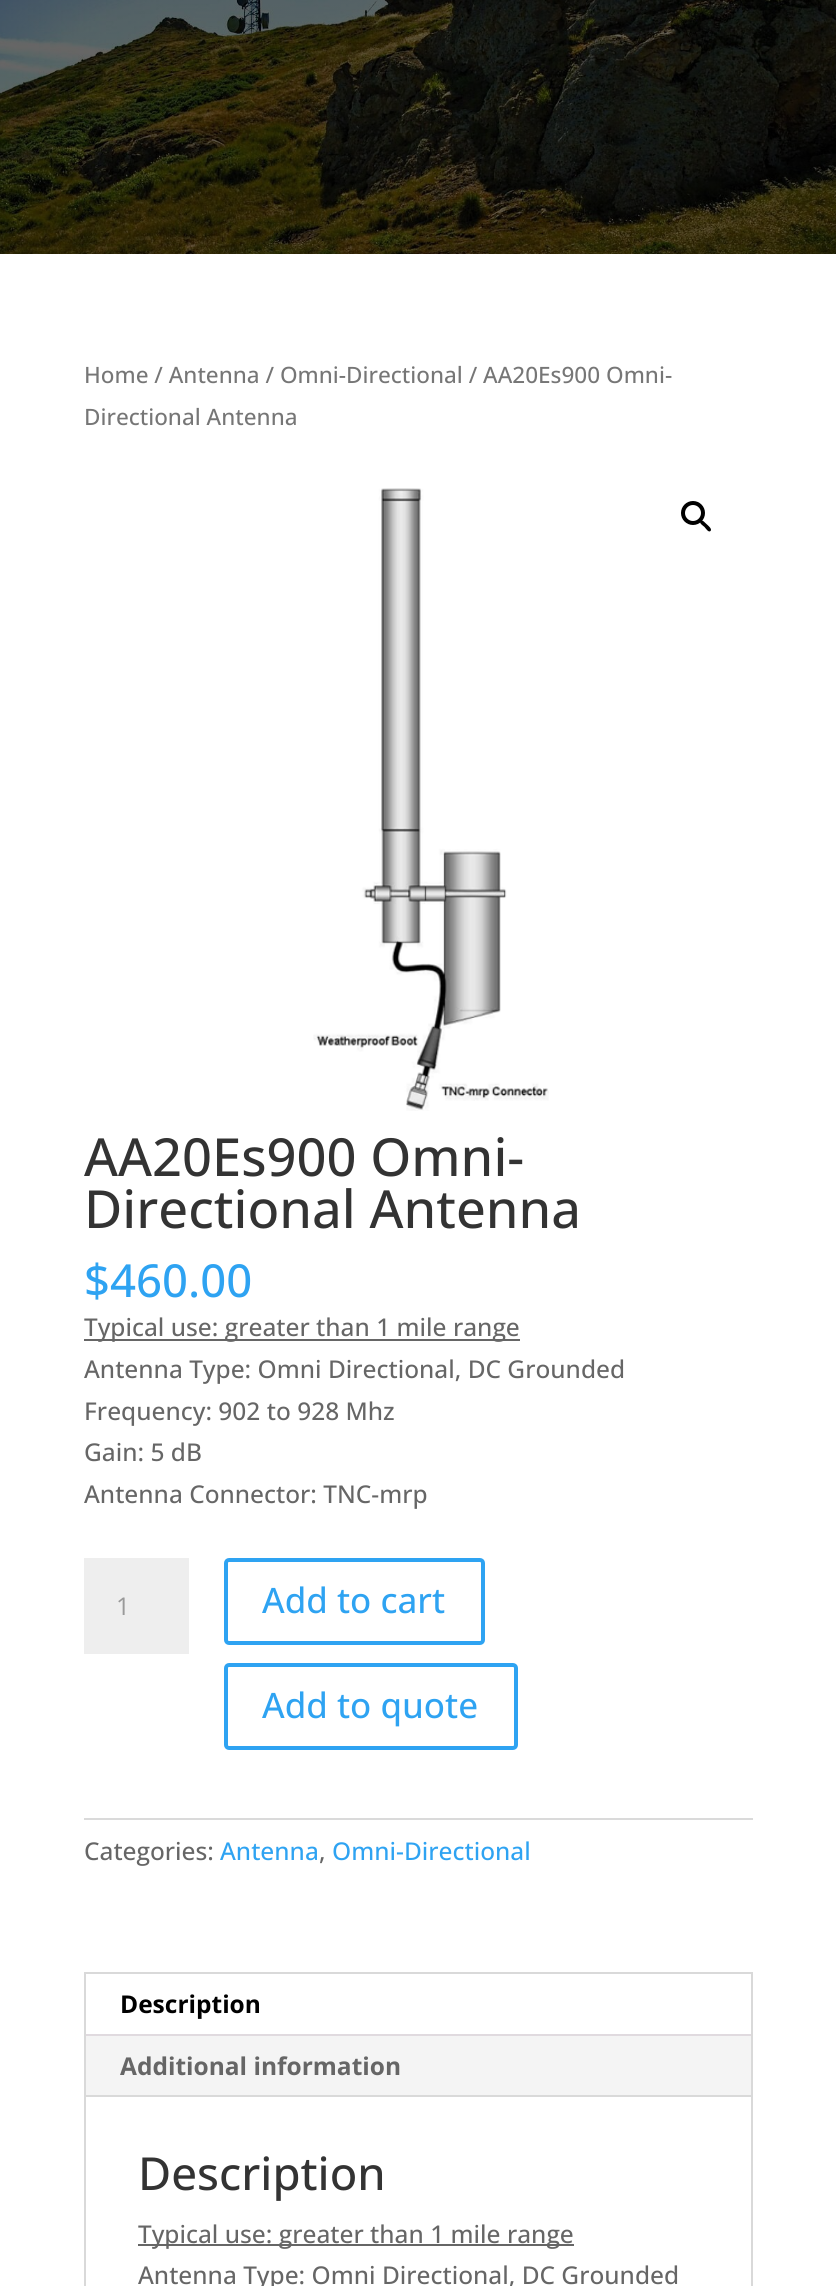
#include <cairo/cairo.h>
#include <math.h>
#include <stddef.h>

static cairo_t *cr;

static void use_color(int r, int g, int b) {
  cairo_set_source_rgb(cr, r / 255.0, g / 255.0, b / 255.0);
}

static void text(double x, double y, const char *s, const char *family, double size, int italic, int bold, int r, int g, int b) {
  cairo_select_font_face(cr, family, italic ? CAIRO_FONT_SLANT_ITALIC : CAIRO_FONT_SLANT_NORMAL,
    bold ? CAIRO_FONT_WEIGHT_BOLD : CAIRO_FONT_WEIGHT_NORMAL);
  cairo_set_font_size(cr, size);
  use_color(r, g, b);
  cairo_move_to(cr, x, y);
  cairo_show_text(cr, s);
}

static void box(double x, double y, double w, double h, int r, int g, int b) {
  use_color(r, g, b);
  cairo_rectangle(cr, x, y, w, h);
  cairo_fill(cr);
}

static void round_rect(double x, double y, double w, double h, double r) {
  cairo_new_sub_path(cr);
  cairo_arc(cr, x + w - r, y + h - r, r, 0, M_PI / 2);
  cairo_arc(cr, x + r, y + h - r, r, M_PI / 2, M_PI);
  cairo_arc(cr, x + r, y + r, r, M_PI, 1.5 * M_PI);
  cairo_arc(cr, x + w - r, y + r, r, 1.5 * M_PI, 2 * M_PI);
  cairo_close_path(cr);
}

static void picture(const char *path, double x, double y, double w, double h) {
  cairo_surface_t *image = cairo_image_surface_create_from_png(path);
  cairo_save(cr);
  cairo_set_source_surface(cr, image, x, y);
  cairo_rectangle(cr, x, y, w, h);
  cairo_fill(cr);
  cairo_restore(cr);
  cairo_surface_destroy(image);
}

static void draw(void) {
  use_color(255, 255, 255);
  cairo_paint(cr);
  picture("img_01.png", 0, 0, 836, 254);
  picture("img_02.png", 313, 488, 236, 623);
  cairo_arc(cr, 693, 513, 10, 0, 2 * M_PI);
  use_color(0, 0, 0);
  cairo_set_line_width(cr, 4);
  cairo_stroke(cr);
  cairo_new_path(cr);
  cairo_move_to(cr, 700.5, 521);
  cairo_curve_to(cr, 702.5, 519, 705.5, 523.5, 707, 524.5);
  cairo_curve_to(cr, 708, 525.5, 712.5, 529, 710.5, 531);
  cairo_curve_to(cr, 708.5, 533, 705.5, 528, 704.5, 527);
  cairo_curve_to(cr, 703.5, 526, 698.5, 523, 700.5, 521);
  cairo_close_path(cr);
  cairo_fill(cr);
  box(84, 1339, 436, 2, 102, 102, 102);
  box(84, 1558, 105, 96, 238, 238, 238);
  round_rect(226, 1560, 257, 83, 3);
  use_color(46, 163, 242);
  cairo_stroke(cr);
  round_rect(226, 1665, 290, 83, 3);
  cairo_stroke(cr);
  box(84, 1818, 669, 2, 218, 218, 218);
  cairo_rectangle(cr, 85, 1973, 667, 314);
  use_color(217, 217, 217);
  cairo_set_line_width(cr, 2);
  cairo_stroke(cr);
  box(86, 2036, 665, 59, 244, 244, 244);
  box(86, 2034, 665, 2, 224, 218, 223);
  box(86, 2095, 665, 2, 217, 217, 217);
  box(138, 2244, 436, 2, 102, 102, 102);
  text(84, 383, "Home / Antenna / Omni-Directional / AA20Es900 Omni-", "Open Sans Medium", 22.55, 0, 0, 118, 118, 118);
  text(84, 425, "Directional Antenna", "Open Sans Medium", 22.55, 0, 0, 118, 118, 118);
  text(84, 1176, "AA20Es900 Omni-", "Open Sans Medium", 52.5, 0, 0, 51, 51, 51);
  text(84, 1228, "Directional Antenna", "Open Sans Medium", 52.5, 0, 0, 51, 51, 51);
  text(84, 1297, "$460.00", "Open Sans Medium", 45.5, 0, 0, 46, 163, 242);
  text(84, 1336, "Typical use: greater than 1 mile range", "Open Sans Medium", 24.5, 0, 0, 102, 102, 102);
  text(84, 1378, "Antenna Type: Omni Directional, DC Grounded", "Open Sans Medium", 24.5, 0, 0, 102, 102, 102);
  text(84, 1420, "Frequency: 902 to 928 Mhz", "Open Sans Medium", 24.5, 0, 0, 102, 102, 102);
  text(84, 1461, "Gain: 5 dB", "Open Sans Medium", 24.5, 0, 0, 102, 102, 102);
  text(84, 1503, "Antenna Connector: TNC-mrp", "Open Sans Medium", 24.5, 0, 0, 102, 102, 102);
  text(116, 1615, "1", "Open Sans", 24.5, 0, 0, 153, 153, 153);
  text(262, 1613, "Add to cart", "Open Sans Medium", 35, 0, 0, 46, 163, 242);
  text(262, 1718, "Add to quote", "Open Sans Medium", 35, 0, 0, 46, 163, 242);
  text(84, 1860, "Categories:", "Open Sans Medium", 24.5, 0, 0, 102, 102, 102);
  text(220, 1860, "Antenna", "Open Sans Medium", 24.5, 0, 0, 46, 163, 242);
  text(319, 1860, ",", "Open Sans Medium", 24.5, 0, 0, 102, 102, 102);
  text(332, 1860, "Omni-Directional", "Open Sans Medium", 24.5, 0, 0, 46, 163, 242);
  text(120, 2013, "Description", "Open Sans", 24.5, 0, 1, 0, 0, 0);
  text(120, 2075, "Additional information", "Open Sans", 24.5, 0, 1, 102, 102, 102);
  text(138, 2190, "Description", "Open Sans Medium", 45.5, 0, 0, 51, 51, 51);
  text(138, 2243, "Typical use: greater than 1 mile range", "Open Sans Medium", 24.5, 0, 0, 102, 102, 102);
  text(138, 2284, "Antenna Type: Omni Directional, DC Grounded", "Open Sans Medium", 24.5, 0, 0, 102, 102, 102);
}

int main(void) {
  cairo_surface_t *surface = cairo_image_surface_create(CAIRO_FORMAT_RGB24, 836, 2286);
  cr = cairo_create(surface);
  cairo_font_options_t *options = cairo_font_options_create();
  cairo_font_options_set_hint_metrics(options, CAIRO_HINT_METRICS_OFF);
  cairo_font_options_set_hint_style(options, CAIRO_HINT_STYLE_NONE);
  cairo_set_font_options(cr, options);
  cairo_set_miter_limit(cr, 4);
  draw();
  cairo_surface_write_to_png(surface, "out.png");
  cairo_font_options_destroy(options);
  cairo_destroy(cr);
  cairo_surface_destroy(surface);
  return 0;
}
